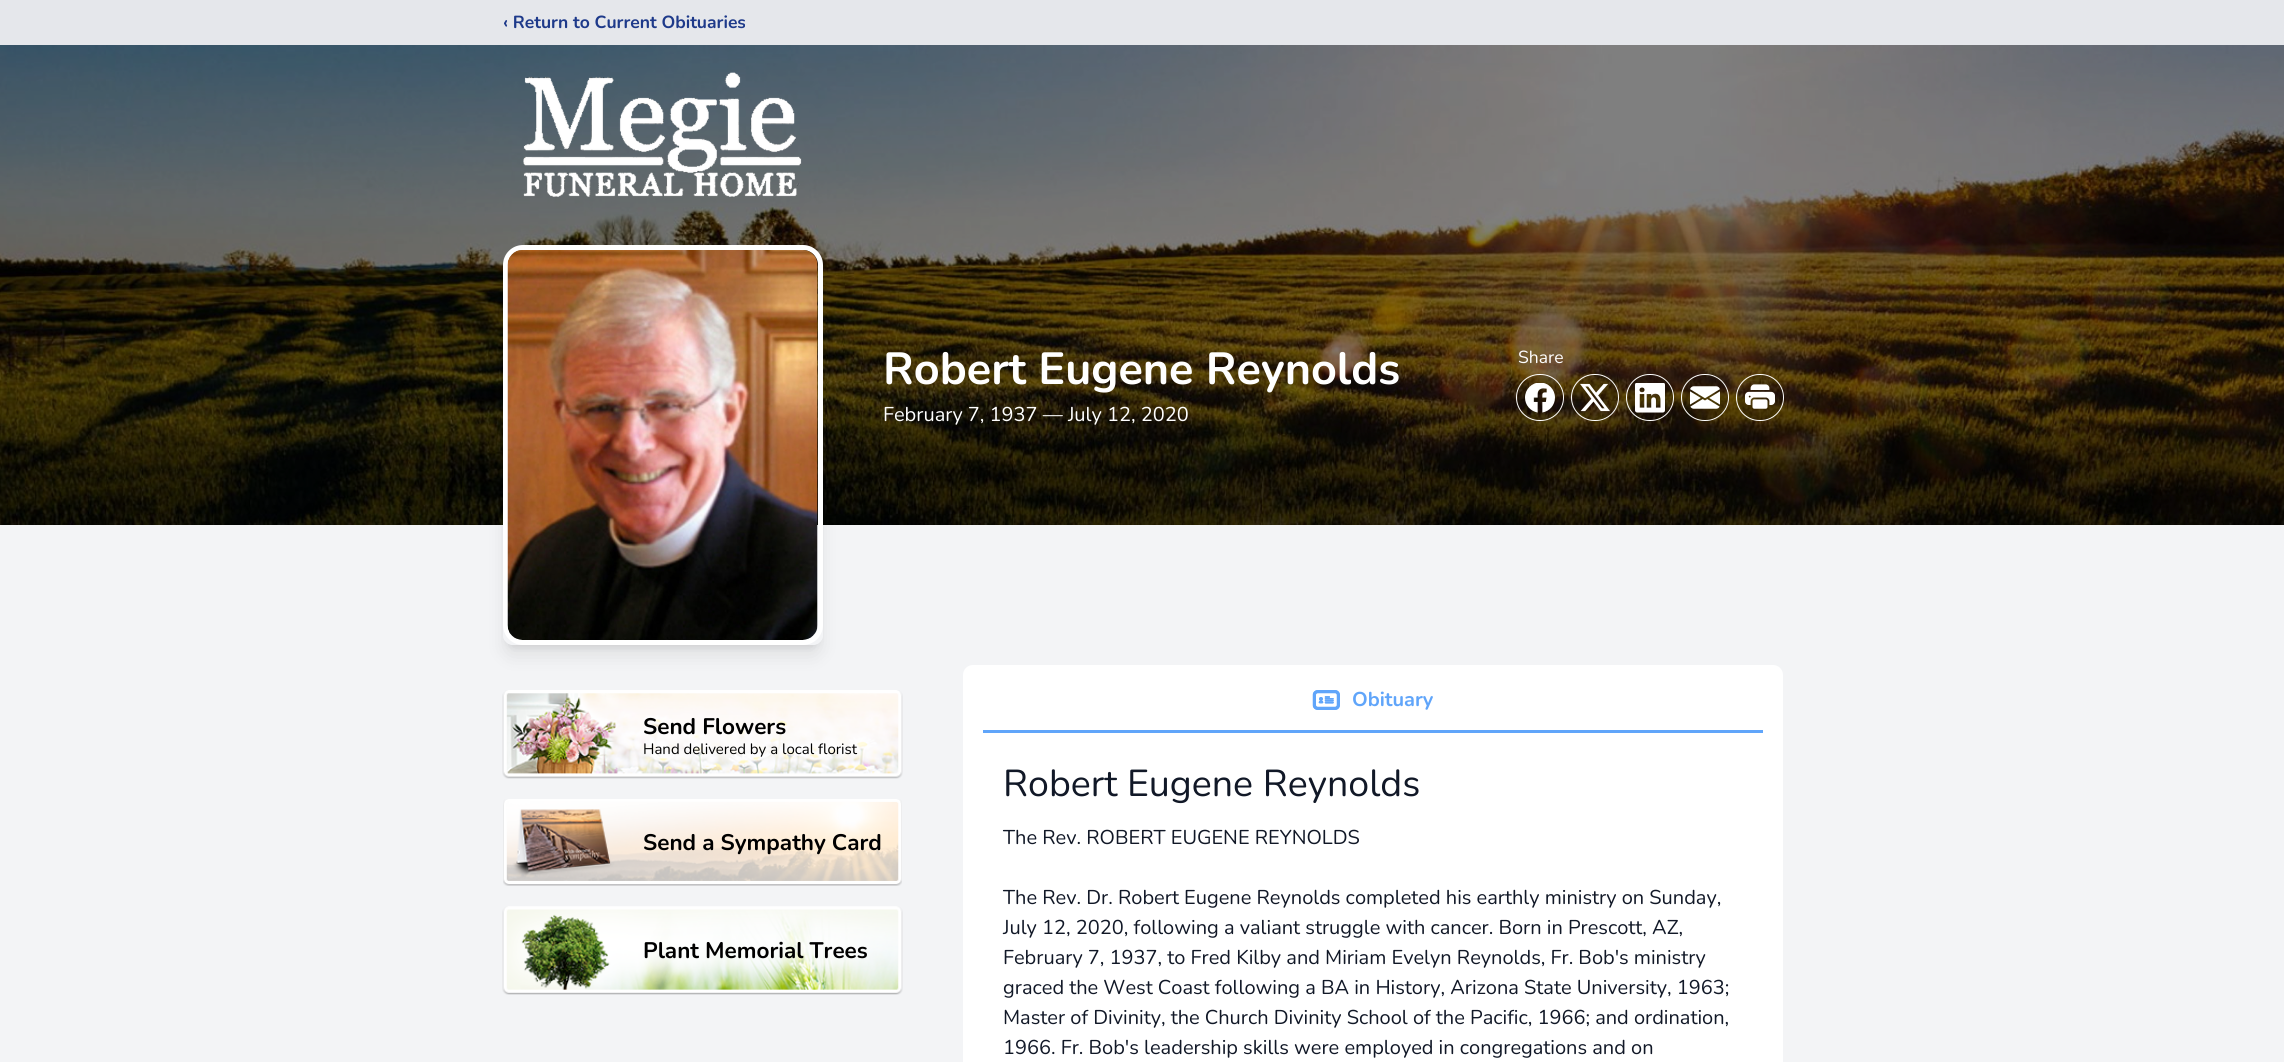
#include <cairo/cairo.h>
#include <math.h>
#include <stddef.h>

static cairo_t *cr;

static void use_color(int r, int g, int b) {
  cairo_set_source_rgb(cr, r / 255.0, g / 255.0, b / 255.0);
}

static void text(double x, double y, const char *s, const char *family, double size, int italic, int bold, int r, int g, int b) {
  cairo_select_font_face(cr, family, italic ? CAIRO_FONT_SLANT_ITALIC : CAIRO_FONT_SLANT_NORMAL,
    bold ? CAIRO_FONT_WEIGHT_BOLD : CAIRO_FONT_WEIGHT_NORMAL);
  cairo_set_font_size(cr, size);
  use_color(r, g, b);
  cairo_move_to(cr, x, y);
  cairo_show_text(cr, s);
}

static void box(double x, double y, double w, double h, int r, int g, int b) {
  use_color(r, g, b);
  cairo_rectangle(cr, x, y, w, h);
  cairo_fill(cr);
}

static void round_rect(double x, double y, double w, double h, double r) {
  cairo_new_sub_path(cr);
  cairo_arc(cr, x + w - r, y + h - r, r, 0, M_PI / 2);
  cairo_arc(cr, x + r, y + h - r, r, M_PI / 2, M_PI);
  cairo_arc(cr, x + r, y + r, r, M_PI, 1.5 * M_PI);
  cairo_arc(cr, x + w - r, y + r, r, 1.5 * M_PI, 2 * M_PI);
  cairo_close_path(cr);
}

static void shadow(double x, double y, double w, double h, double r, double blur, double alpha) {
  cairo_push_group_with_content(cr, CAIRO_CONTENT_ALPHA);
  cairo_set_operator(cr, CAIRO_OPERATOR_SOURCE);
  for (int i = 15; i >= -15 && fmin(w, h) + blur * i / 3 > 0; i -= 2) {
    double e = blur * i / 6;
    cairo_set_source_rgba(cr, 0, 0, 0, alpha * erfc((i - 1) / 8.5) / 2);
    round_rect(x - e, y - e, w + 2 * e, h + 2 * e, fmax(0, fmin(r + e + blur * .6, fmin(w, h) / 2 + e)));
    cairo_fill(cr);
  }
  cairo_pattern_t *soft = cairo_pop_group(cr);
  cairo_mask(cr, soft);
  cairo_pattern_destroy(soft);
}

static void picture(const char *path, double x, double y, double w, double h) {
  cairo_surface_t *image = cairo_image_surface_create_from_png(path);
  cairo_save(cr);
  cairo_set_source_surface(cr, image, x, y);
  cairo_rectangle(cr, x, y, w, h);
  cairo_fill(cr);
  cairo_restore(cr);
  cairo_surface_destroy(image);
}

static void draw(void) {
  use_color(243, 244, 246);
  cairo_paint(cr);
  box(0, 0, 2284, 45, 229, 231, 235);
  picture("img_01.png", 0, 45, 2284, 480);
  picture("img_02.png", 523, 72, 279, 126);
  cairo_save(cr);
  cairo_set_fill_rule(cr, CAIRO_FILL_RULE_EVEN_ODD);
  cairo_new_path(cr);
  cairo_move_to(cr, 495, 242);
  cairo_line_to(cr, 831, 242);
  cairo_line_to(cr, 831, 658);
  cairo_line_to(cr, 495, 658);
  cairo_close_path(cr);
  cairo_move_to(cr, 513, 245);
  cairo_line_to(cr, 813, 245);
  cairo_curve_to(cr, 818.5, 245, 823, 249.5, 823, 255);
  cairo_line_to(cr, 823, 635);
  cairo_curve_to(cr, 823, 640.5, 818.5, 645, 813, 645);
  cairo_line_to(cr, 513, 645);
  cairo_curve_to(cr, 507.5, 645, 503, 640.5, 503, 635);
  cairo_line_to(cr, 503, 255);
  cairo_curve_to(cr, 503, 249.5, 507.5, 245, 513, 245);
  cairo_close_path(cr);
  cairo_clip(cr);
  use_color(0, 0, 0);
  shadow(508, 255, 310, 390, 5, 4, 0.1);
  cairo_restore(cr);
  cairo_save(cr);
  cairo_set_fill_rule(cr, CAIRO_FILL_RULE_EVEN_ODD);
  cairo_new_path(cr);
  cairo_move_to(cr, 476, 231);
  cairo_line_to(cr, 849, 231);
  cairo_line_to(cr, 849, 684);
  cairo_line_to(cr, 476, 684);
  cairo_close_path(cr);
  cairo_move_to(cr, 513, 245);
  cairo_line_to(cr, 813, 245);
  cairo_curve_to(cr, 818.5, 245, 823, 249.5, 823, 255);
  cairo_line_to(cr, 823, 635);
  cairo_curve_to(cr, 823, 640.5, 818.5, 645, 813, 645);
  cairo_line_to(cr, 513, 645);
  cairo_curve_to(cr, 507.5, 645, 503, 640.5, 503, 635);
  cairo_line_to(cr, 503, 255);
  cairo_curve_to(cr, 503, 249.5, 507.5, 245, 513, 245);
  cairo_close_path(cr);
  cairo_clip(cr);
  use_color(0, 0, 0);
  shadow(506, 261, 313, 393, 6, 9.5, 0.1);
  cairo_restore(cr);
  round_rect(505.5, 247.5, 315, 395, 17.5);
  use_color(255, 255, 255);
  cairo_set_line_width(cr, 5);
  cairo_stroke(cr);
  picture("img_03.png", 507, 250, 311, 390);
  round_rect(1516.5, 374.5, 47, 46, 23);
  cairo_set_line_width(cr, 1);
  cairo_stroke(cr);
  cairo_set_source_rgba(cr, 0, 0, 0, 0.2);
  cairo_arc(cr, 1540.5, 397.5, 22.5, 0, 2 * M_PI);
  cairo_fill(cr);
  picture("img_04.png", 1525, 383, 30, 30);
  round_rect(1571.5, 374.5, 47, 46, 23);
  use_color(255, 255, 255);
  cairo_stroke(cr);
  cairo_set_source_rgba(cr, 0, 0, 0, 0.2);
  cairo_arc(cr, 1595.5, 397.5, 22.5, 0, 2 * M_PI);
  cairo_fill(cr);
  picture("img_05.png", 1580, 383, 30, 29);
  round_rect(1626.5, 374.5, 47, 46, 23);
  use_color(255, 255, 255);
  cairo_stroke(cr);
  cairo_set_source_rgba(cr, 0, 0, 0, 0.2);
  cairo_arc(cr, 1650.5, 397.5, 22.5, 0, 2 * M_PI);
  cairo_fill(cr);
  picture("img_06.png", 1635, 383, 30, 30);
  round_rect(1681.5, 374.5, 47, 46, 23);
  use_color(255, 255, 255);
  cairo_stroke(cr);
  cairo_set_source_rgba(cr, 0, 0, 0, 0.2);
  cairo_arc(cr, 1705.5, 397.5, 22.5, 0, 2 * M_PI);
  cairo_fill(cr);
  picture("img_07.png", 1690, 386, 30, 23);
  round_rect(1736.5, 374.5, 47, 46, 23);
  use_color(255, 255, 255);
  cairo_stroke(cr);
  cairo_set_source_rgba(cr, 0, 0, 0, 0.2);
  cairo_arc(cr, 1760.5, 397.5, 22.5, 0, 2 * M_PI);
  cairo_fill(cr);
  picture("img_08.png", 1745, 384, 30, 25);
  picture("img_09.png", 502, 690, 401, 89);
  picture("img_10.png", 503, 799, 399, 87);
  picture("img_11.png", 502, 906, 401, 89);
  use_color(255, 255, 255);
  round_rect(963, 665, 820, 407, 10);
  cairo_fill(cr);
  box(983, 730, 780, 3, 96, 165, 250);
  picture("img_12.png", 1312, 690, 28, 20);
  text(503, 28, "‹ Return to Current Obituaries", "Nunito", 17.5, 0, 1, 30, 58, 138);
  text(883, 384, "Robert Eugene Reynolds", "Nunito", 45, 0, 1, 255, 255, 255);
  text(883, 421, "February 7, 1937 — July 12, 2020", "Nunito", 20, 0, 0, 255, 255, 255);
  text(1518, 363, "Share", "Nunito", 17.5, 0, 0, 255, 255, 255);
  text(643, 734, "Send Flowers", "Nunito", 22.5, 0, 1, 0, 0, 0);
  text(643, 754, "Hand delivered by a local florist", "Nunito", 15, 0, 0, 0, 0, 0);
  text(643, 850, "Send a Sympathy Card", "Nunito", 22.5, 0, 1, 0, 0, 0);
  text(643, 958, "Plant Memorial Trees", "Nunito", 22.5, 0, 1, 0, 0, 0);
  text(1352, 706, "Obituary", "Nunito", 20, 0, 1, 96, 165, 250);
  text(1003, 796, "Robert Eugene Reynolds", "Nunito", 37.5, 0, 0, 17, 24, 39);
  text(1003, 844, "The Rev. ROBERT EUGENE REYNOLDS", "Nunito", 20, 0, 0, 17, 24, 39);
  text(1003, 904, "The Rev. Dr. Robert Eugene Reynolds completed his earthly ministry on Sunday,", "Nunito", 20, 0, 0, 17, 24, 39);
  text(1003, 934, "July 12, 2020, following a valiant struggle with cancer. Born in Prescott, AZ,", "Nunito", 20, 0, 0, 17, 24, 39);
  text(1003, 964, "February 7, 1937, to Fred Kilby and Miriam Evelyn Reynolds, Fr. Bob's ministry", "Nunito", 20, 0, 0, 17, 24, 39);
  text(1003, 994, "graced the West Coast following a BA in History, Arizona State University, 1963;", "Nunito", 20, 0, 0, 17, 24, 39);
  text(1003, 1024, "Master of Divinity, the Church Divinity School of the Pacific, 1966; and ordination,", "Nunito", 20, 0, 0, 17, 24, 39);
  text(1003, 1054, "1966. Fr. Bob's leadership skills were employed in congregations and on", "Nunito", 20, 0, 0, 17, 24, 39);
}

int main(void) {
  cairo_surface_t *surface = cairo_image_surface_create(CAIRO_FORMAT_RGB24, 2284, 1062);
  cr = cairo_create(surface);
  cairo_font_options_t *options = cairo_font_options_create();
  cairo_font_options_set_hint_metrics(options, CAIRO_HINT_METRICS_OFF);
  cairo_font_options_set_hint_style(options, CAIRO_HINT_STYLE_NONE);
  cairo_set_font_options(cr, options);
  cairo_set_miter_limit(cr, 4);
  draw();
  cairo_surface_write_to_png(surface, "out.png");
  cairo_font_options_destroy(options);
  cairo_destroy(cr);
  cairo_surface_destroy(surface);
  return 0;
}
